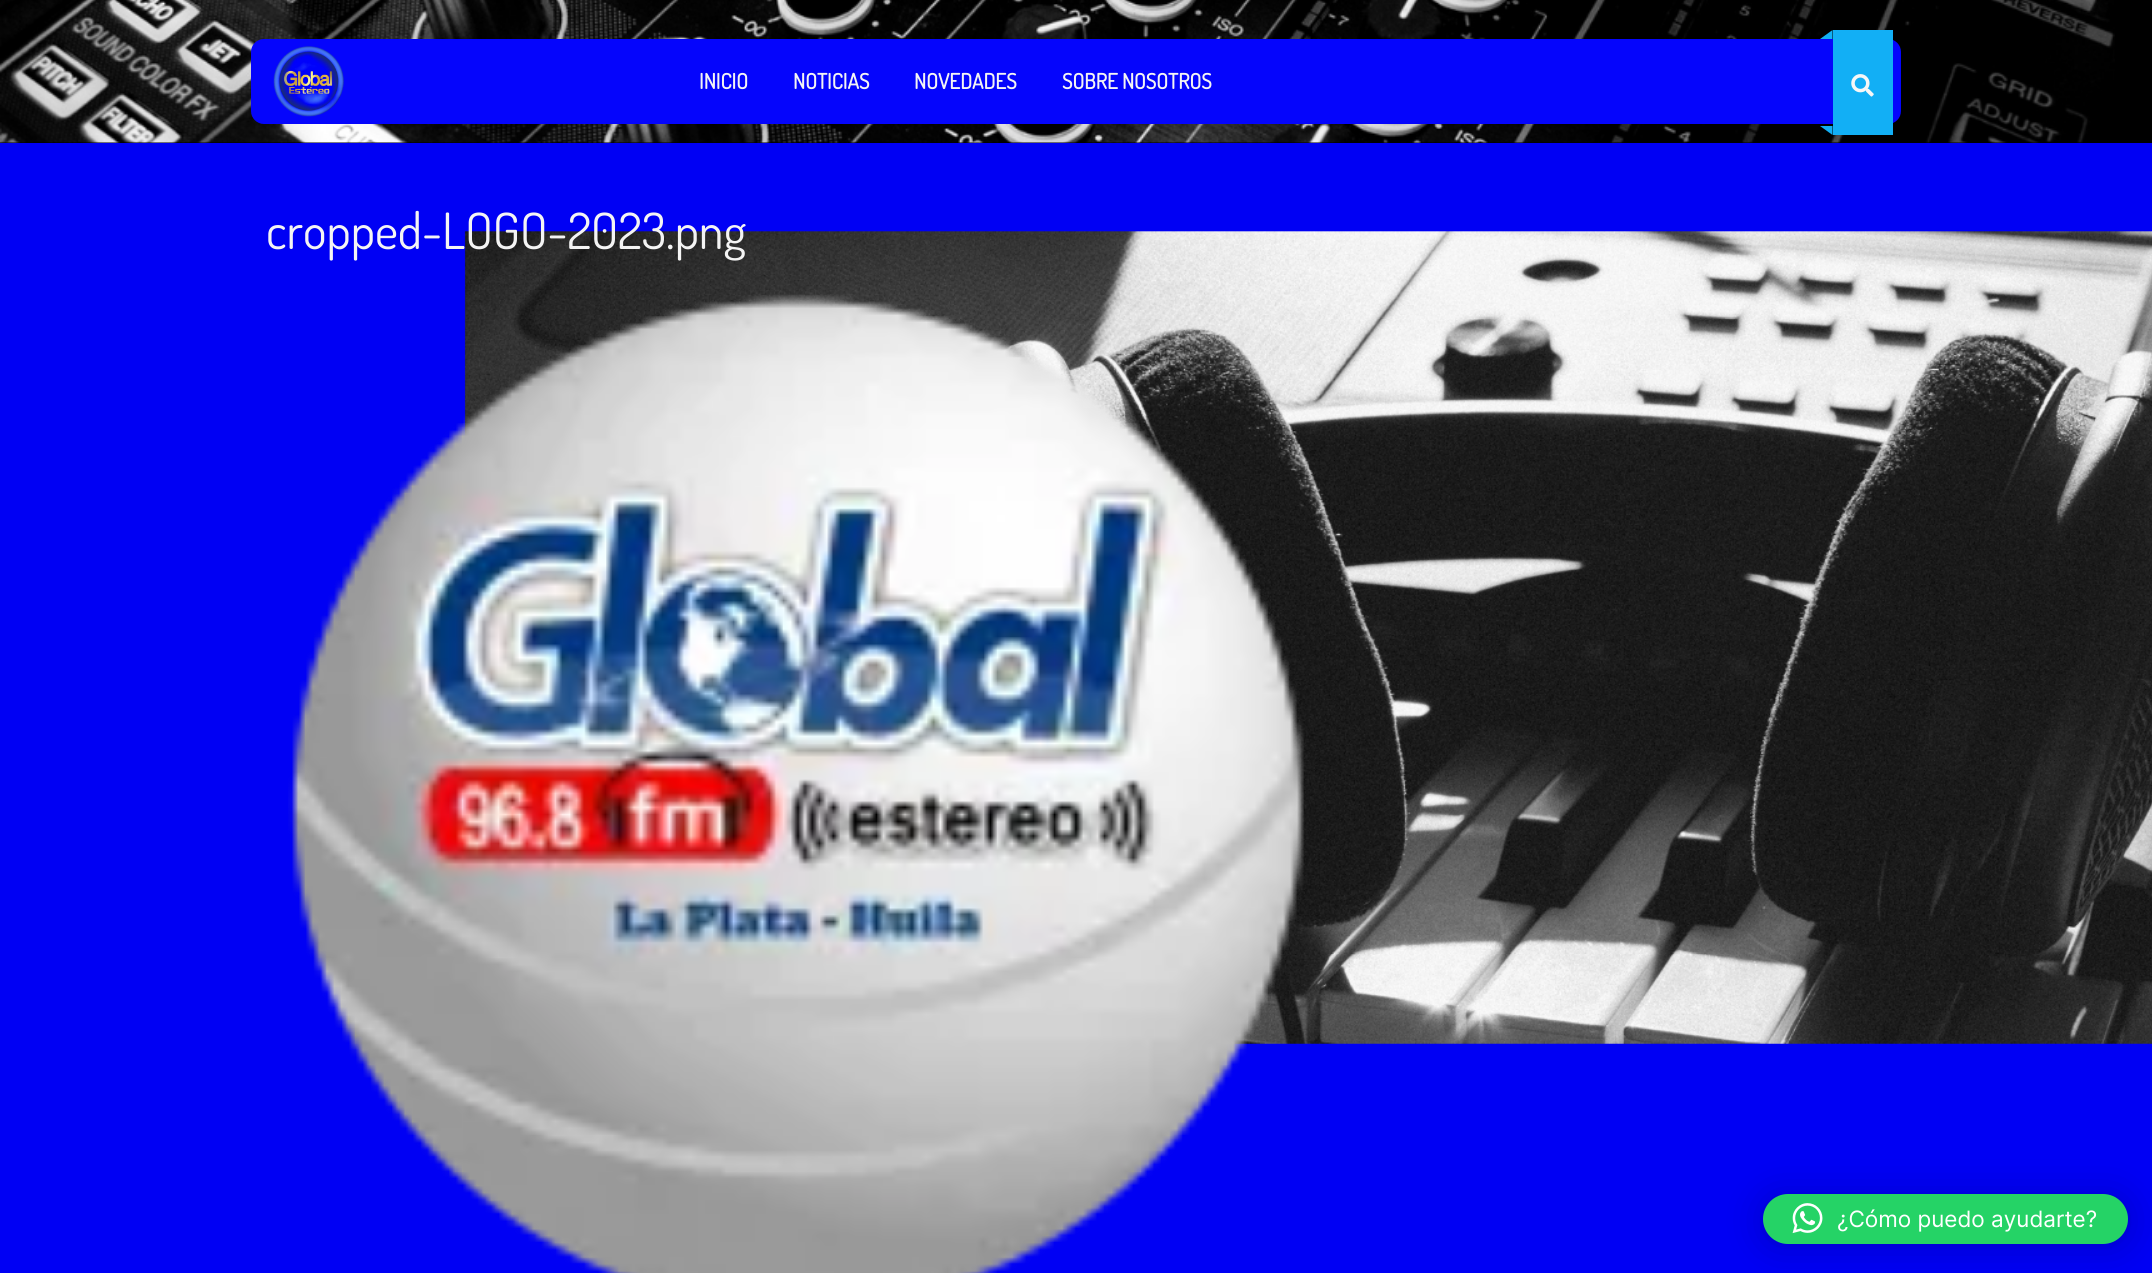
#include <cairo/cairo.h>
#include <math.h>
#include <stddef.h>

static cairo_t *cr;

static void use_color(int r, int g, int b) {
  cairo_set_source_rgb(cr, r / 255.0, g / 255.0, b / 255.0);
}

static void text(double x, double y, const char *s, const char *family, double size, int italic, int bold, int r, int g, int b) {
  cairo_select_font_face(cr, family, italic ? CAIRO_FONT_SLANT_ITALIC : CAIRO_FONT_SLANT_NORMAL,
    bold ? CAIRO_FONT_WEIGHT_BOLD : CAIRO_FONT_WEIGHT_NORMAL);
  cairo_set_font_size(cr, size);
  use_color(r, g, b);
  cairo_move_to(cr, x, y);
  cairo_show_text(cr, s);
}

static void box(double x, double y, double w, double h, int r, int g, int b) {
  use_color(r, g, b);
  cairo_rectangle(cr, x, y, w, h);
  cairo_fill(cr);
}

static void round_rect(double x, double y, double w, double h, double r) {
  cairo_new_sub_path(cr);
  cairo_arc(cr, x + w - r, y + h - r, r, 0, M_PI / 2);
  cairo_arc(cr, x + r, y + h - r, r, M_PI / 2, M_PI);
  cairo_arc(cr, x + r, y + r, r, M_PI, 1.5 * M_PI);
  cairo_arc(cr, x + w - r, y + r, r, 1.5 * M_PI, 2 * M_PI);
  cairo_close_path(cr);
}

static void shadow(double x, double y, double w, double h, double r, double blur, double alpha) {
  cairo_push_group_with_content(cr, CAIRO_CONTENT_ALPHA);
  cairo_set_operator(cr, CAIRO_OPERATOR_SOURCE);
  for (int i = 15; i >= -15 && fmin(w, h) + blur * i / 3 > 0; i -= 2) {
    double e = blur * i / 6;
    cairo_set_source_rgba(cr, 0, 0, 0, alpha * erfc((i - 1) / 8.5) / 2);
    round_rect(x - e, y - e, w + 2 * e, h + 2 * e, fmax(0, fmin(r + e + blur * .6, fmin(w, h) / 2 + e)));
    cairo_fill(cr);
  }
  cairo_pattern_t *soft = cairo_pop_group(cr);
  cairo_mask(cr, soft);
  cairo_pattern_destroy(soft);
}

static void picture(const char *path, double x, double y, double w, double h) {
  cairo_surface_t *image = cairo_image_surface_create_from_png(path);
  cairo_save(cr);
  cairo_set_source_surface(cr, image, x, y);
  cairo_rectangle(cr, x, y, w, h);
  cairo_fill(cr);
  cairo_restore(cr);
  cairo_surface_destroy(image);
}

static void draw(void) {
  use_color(0, 0, 244);
  cairo_paint(cr);
  picture("img_01.png", 464, 231, 1688, 813);
  box(0, 0, 2152, 143, 0, 0, 0);
  picture("img_02.png", 0, 0, 2115, 143);
  use_color(5, 5, 252);
  round_rect(251, 39, 1650, 85, 13);
  cairo_fill(cr);
  picture("img_03.png", 273, 46, 71, 71);
  box(1833, 30, 60, 105, 18, 175, 245);
  cairo_new_path(cr);
  cairo_move_to(cr, 1832.5, 39);
  cairo_line_to(cr, 1820, 39);
  cairo_line_to(cr, 1832.5, 30);
  cairo_close_path(cr);
  cairo_fill(cr);
  picture("img_04.png", 1851, 74, 23, 23);
  cairo_new_path(cr);
  cairo_move_to(cr, 1820, 126);
  cairo_line_to(cr, 1832.5, 126);
  cairo_line_to(cr, 1832.5, 135);
  cairo_close_path(cr);
  cairo_fill(cr);
  picture("img_05.png", 288, 294, 1016, 979);
  use_color(0, 0, 0);
  shadow(1763, 1196, 365, 50, 25, 20, 0.16);
  shadow(1763, 1195, 365, 50, 25, 4, 0.06);
  use_color(37, 211, 102);
  round_rect(1763, 1194, 365, 50, 25);
  cairo_fill(cr);
  picture("img_06.png", 1792, 1203, 31, 31);
  text(699, 89, "INICIO", "Dosis", 21.25, 0, 1, 244, 244, 244);
  text(793, 89, "NOTICIAS", "Dosis", 21.25, 0, 1, 244, 244, 244);
  text(914, 89, "NOVEDADES", "Dosis", 21.25, 0, 1, 244, 244, 244);
  text(1062, 89, "SOBRE NOSOTROS", "Dosis", 21.25, 0, 1, 244, 244, 244);
  text(266, 249, "cropped-LOGO-2023.png", "Dosis", 50, 0, 0, 244, 244, 244);
  text(1837, 1227, "¿Cómo puedo ayudarte?", "Inter", 22.5, 0, 0, 255, 255, 255);
}

int main(void) {
  cairo_surface_t *surface = cairo_image_surface_create(CAIRO_FORMAT_RGB24, 2152, 1273);
  cr = cairo_create(surface);
  cairo_font_options_t *options = cairo_font_options_create();
  cairo_font_options_set_hint_metrics(options, CAIRO_HINT_METRICS_OFF);
  cairo_font_options_set_hint_style(options, CAIRO_HINT_STYLE_NONE);
  cairo_set_font_options(cr, options);
  cairo_set_miter_limit(cr, 4);
  draw();
  cairo_surface_write_to_png(surface, "out.png");
  cairo_font_options_destroy(options);
  cairo_destroy(cr);
  cairo_surface_destroy(surface);
  return 0;
}
